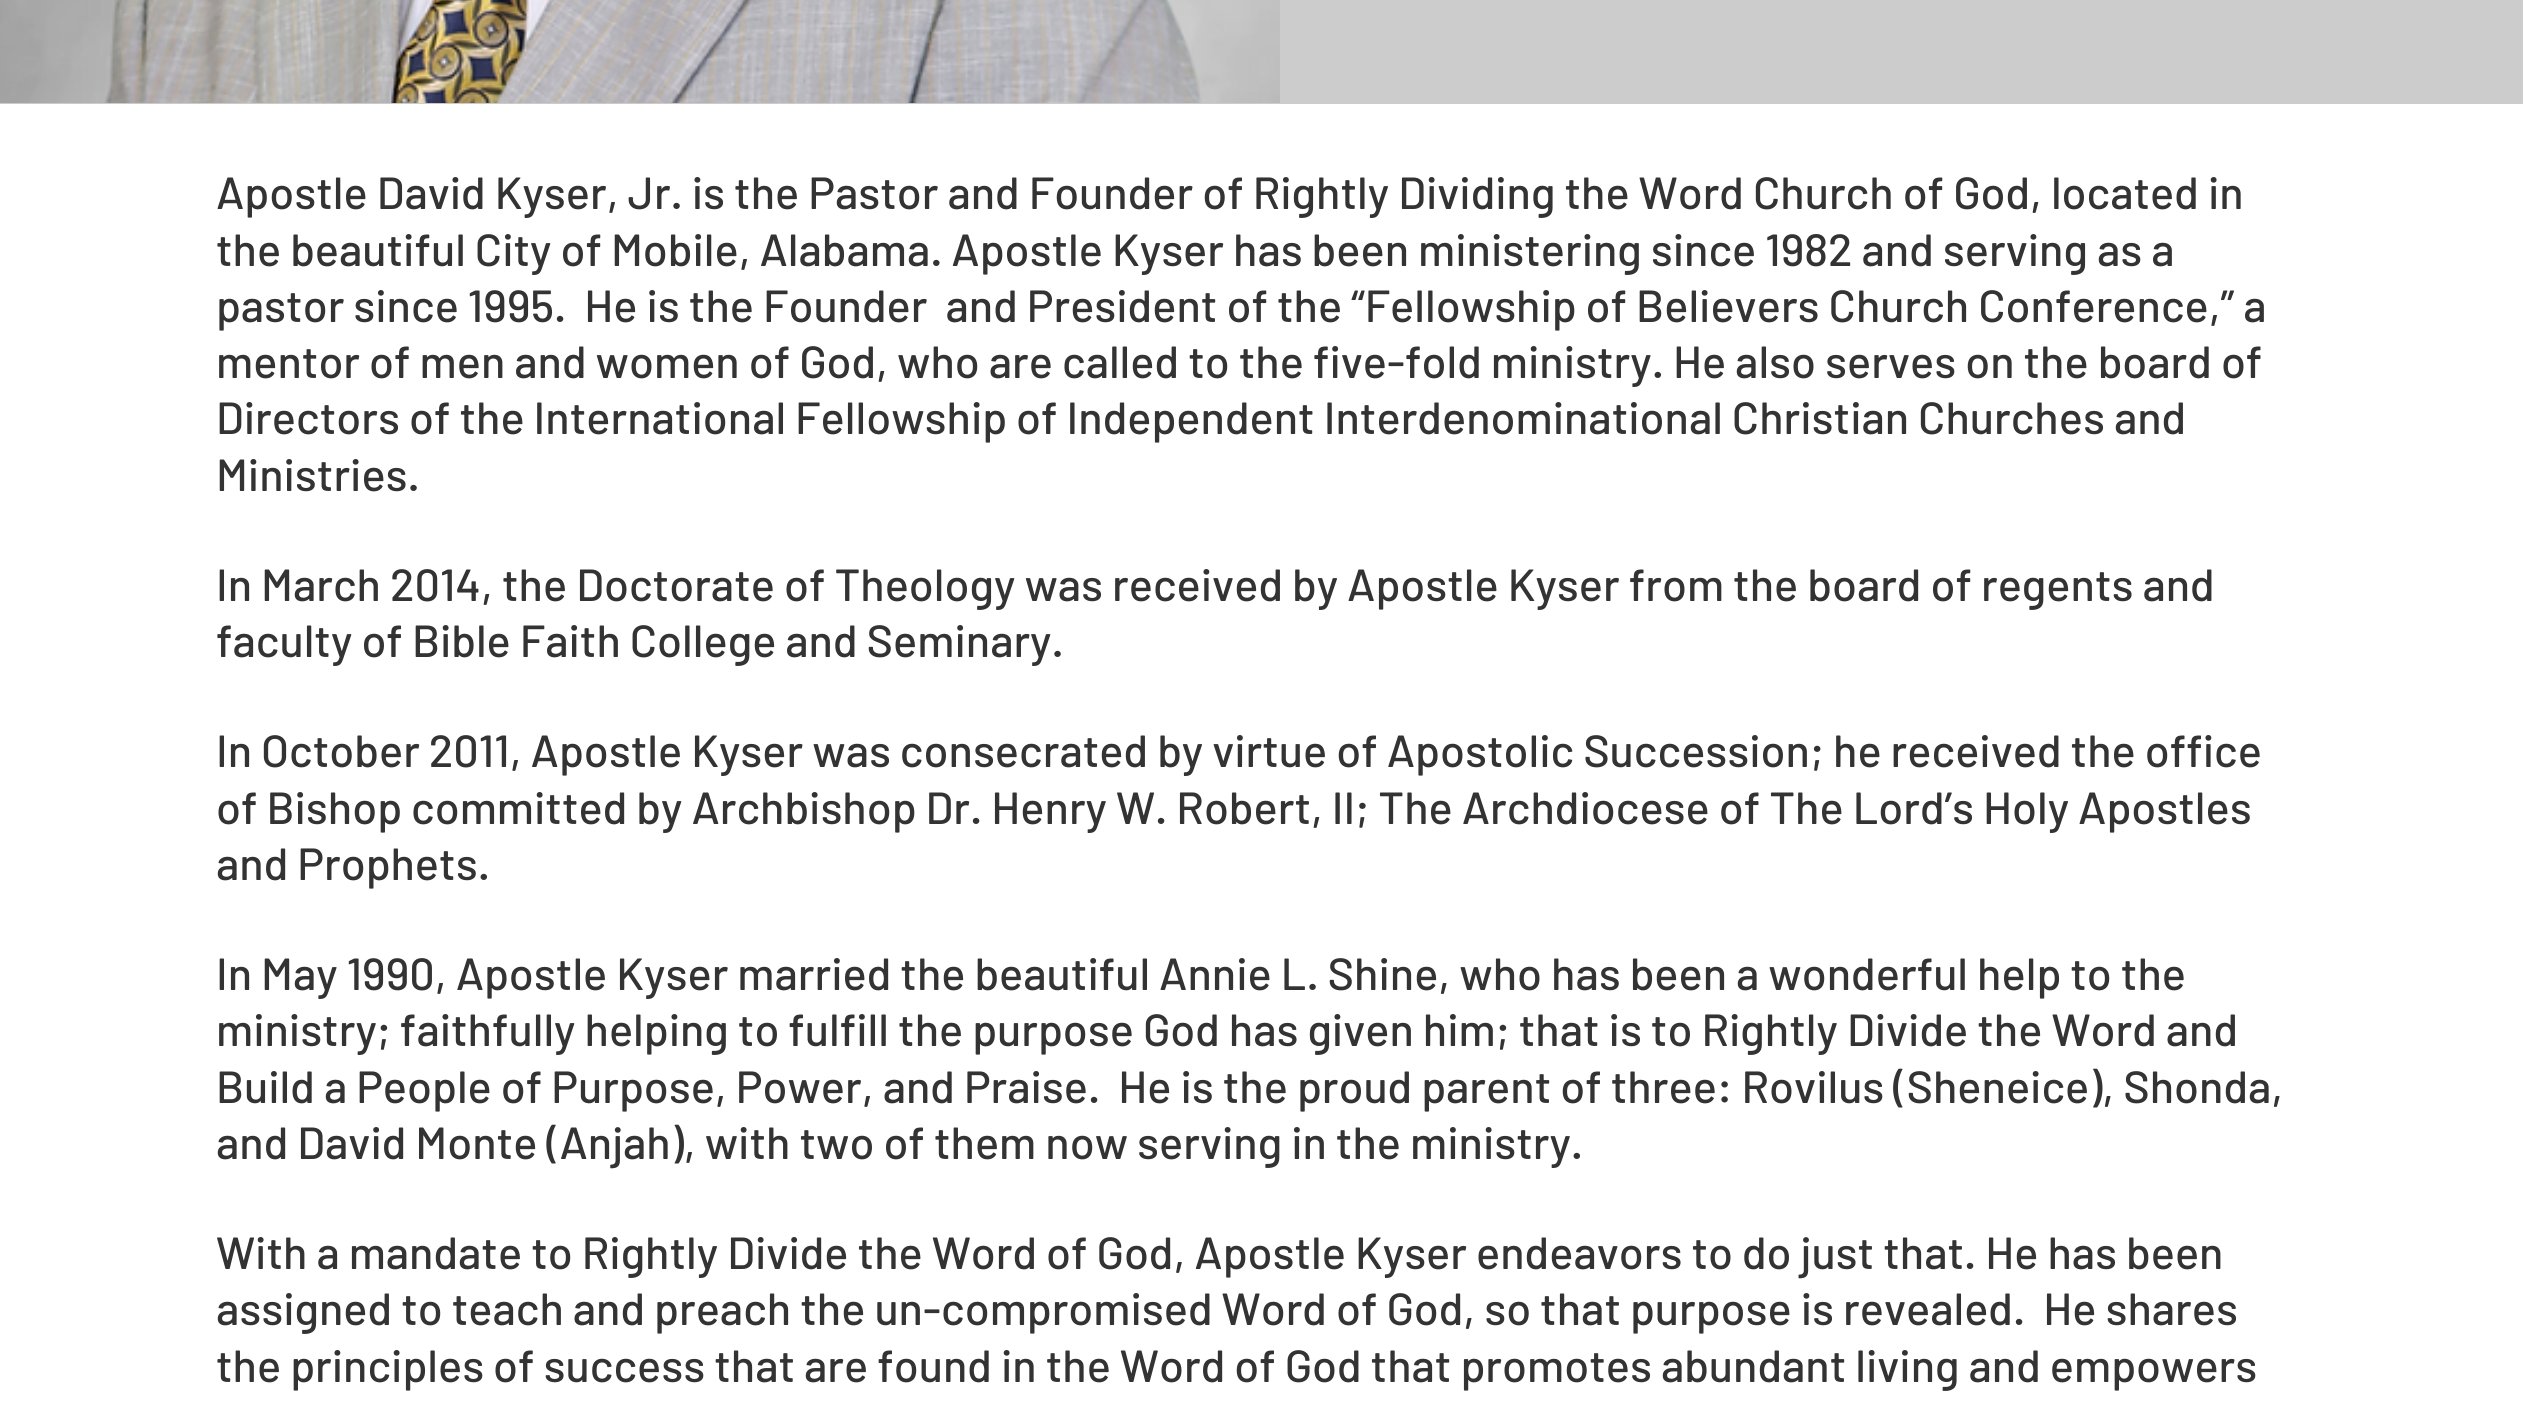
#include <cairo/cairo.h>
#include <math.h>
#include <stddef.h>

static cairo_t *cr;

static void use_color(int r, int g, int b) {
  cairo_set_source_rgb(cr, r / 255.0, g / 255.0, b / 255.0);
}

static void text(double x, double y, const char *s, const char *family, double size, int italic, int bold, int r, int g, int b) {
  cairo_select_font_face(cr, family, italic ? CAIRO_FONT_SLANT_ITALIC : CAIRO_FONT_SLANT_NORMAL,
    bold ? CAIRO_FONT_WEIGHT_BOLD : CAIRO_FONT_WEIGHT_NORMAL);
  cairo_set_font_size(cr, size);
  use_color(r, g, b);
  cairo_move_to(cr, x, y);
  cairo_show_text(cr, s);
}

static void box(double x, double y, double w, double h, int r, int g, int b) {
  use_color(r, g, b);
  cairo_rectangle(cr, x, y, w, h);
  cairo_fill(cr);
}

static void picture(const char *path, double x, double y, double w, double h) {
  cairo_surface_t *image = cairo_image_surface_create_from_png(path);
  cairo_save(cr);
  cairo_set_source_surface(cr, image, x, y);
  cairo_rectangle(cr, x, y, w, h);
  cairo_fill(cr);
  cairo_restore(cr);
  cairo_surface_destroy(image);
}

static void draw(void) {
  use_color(255, 255, 255);
  cairo_paint(cr);
  box(0, 0, 2523, 104, 204, 204, 204);
  picture("img_01.png", 0, 0, 1280, 104);
  text(216, 209, "Apostle David Kyser, Jr. is the Pastor and Founder of Rightly Dividing the Word Church of God, located in", "Barlow Medium", 45, 0, 0, 51, 51, 51);
  text(216, 266, "the beautiful City of Mobile, Alabama. Apostle Kyser has been ministering since 1982 and serving as a", "Barlow Medium", 45, 0, 0, 51, 51, 51);
  text(216, 322, "pastor since 1995.  He is the Founder  and President of the “Fellowship of Believers Church Conference,” a", "Barlow Medium", 45, 0, 0, 51, 51, 51);
  text(216, 378, "mentor of men and women of God, who are called to the five-fold ministry. He also serves on the board of", "Barlow Medium", 45, 0, 0, 51, 51, 51);
  text(216, 434, "Directors of the International Fellowship of Independent Interdenominational Christian Churches and", "Barlow Medium", 45, 0, 0, 51, 51, 51);
  text(216, 491, "Ministries.", "Barlow Medium", 45, 0, 0, 51, 51, 51);
  text(216, 601, "In March 2014, the Doctorate of Theology was received by Apostle Kyser from the board of regents and", "Barlow Medium", 45, 0, 0, 51, 51, 51);
  text(216, 657, "faculty of Bible Faith College and Seminary.", "Barlow Medium", 45, 0, 0, 51, 51, 51);
  text(216, 767, "In October 2011, Apostle Kyser was consecrated by virtue of Apostolic Succession; he received the office", "Barlow Medium", 45, 0, 0, 51, 51, 51);
  text(216, 824, "of Bishop committed by Archbishop Dr. Henry W. Robert, II; The Archdiocese of The Lord’s Holy Apostles", "Barlow Medium", 45, 0, 0, 51, 51, 51);
  text(216, 880, "and Prophets.", "Barlow Medium", 45, 0, 0, 51, 51, 51);
  text(216, 990, "In May 1990, Apostle Kyser married the beautiful Annie L. Shine, who has been a wonderful help to the", "Barlow Medium", 45, 0, 0, 51, 51, 51);
  text(216, 1046, "ministry; faithfully helping to fulfill the purpose God has given him; that is to Rightly Divide the Word and", "Barlow Medium", 45, 0, 0, 51, 51, 51);
  text(216, 1103, "Build a People of Purpose, Power, and Praise.  He is the proud parent of three: Rovilus (Sheneice), Shonda,", "Barlow Medium", 45, 0, 0, 51, 51, 51);
  text(216, 1159, "and David Monte (Anjah), with two of them now serving in the ministry.", "Barlow Medium", 45, 0, 0, 51, 51, 51);
  text(216, 1269, "With a mandate to Rightly Divide the Word of God, Apostle Kyser endeavors to do just that. He has been", "Barlow Medium", 45, 0, 0, 51, 51, 51);
  text(216, 1325, "assigned to teach and preach the un-compromised Word of God, so that purpose is revealed.  He shares", "Barlow Medium", 45, 0, 0, 51, 51, 51);
  text(216, 1382, "the principles of success that are found in the Word of God that promotes abundant living and empowers", "Barlow Medium", 45, 0, 0, 51, 51, 51);
}

int main(void) {
  cairo_surface_t *surface = cairo_image_surface_create(CAIRO_FORMAT_RGB24, 2523, 1405);
  cr = cairo_create(surface);
  cairo_font_options_t *options = cairo_font_options_create();
  cairo_font_options_set_hint_metrics(options, CAIRO_HINT_METRICS_OFF);
  cairo_font_options_set_hint_style(options, CAIRO_HINT_STYLE_NONE);
  cairo_set_font_options(cr, options);
  cairo_set_miter_limit(cr, 4);
  draw();
  cairo_surface_write_to_png(surface, "out.png");
  cairo_font_options_destroy(options);
  cairo_destroy(cr);
  cairo_surface_destroy(surface);
  return 0;
}
